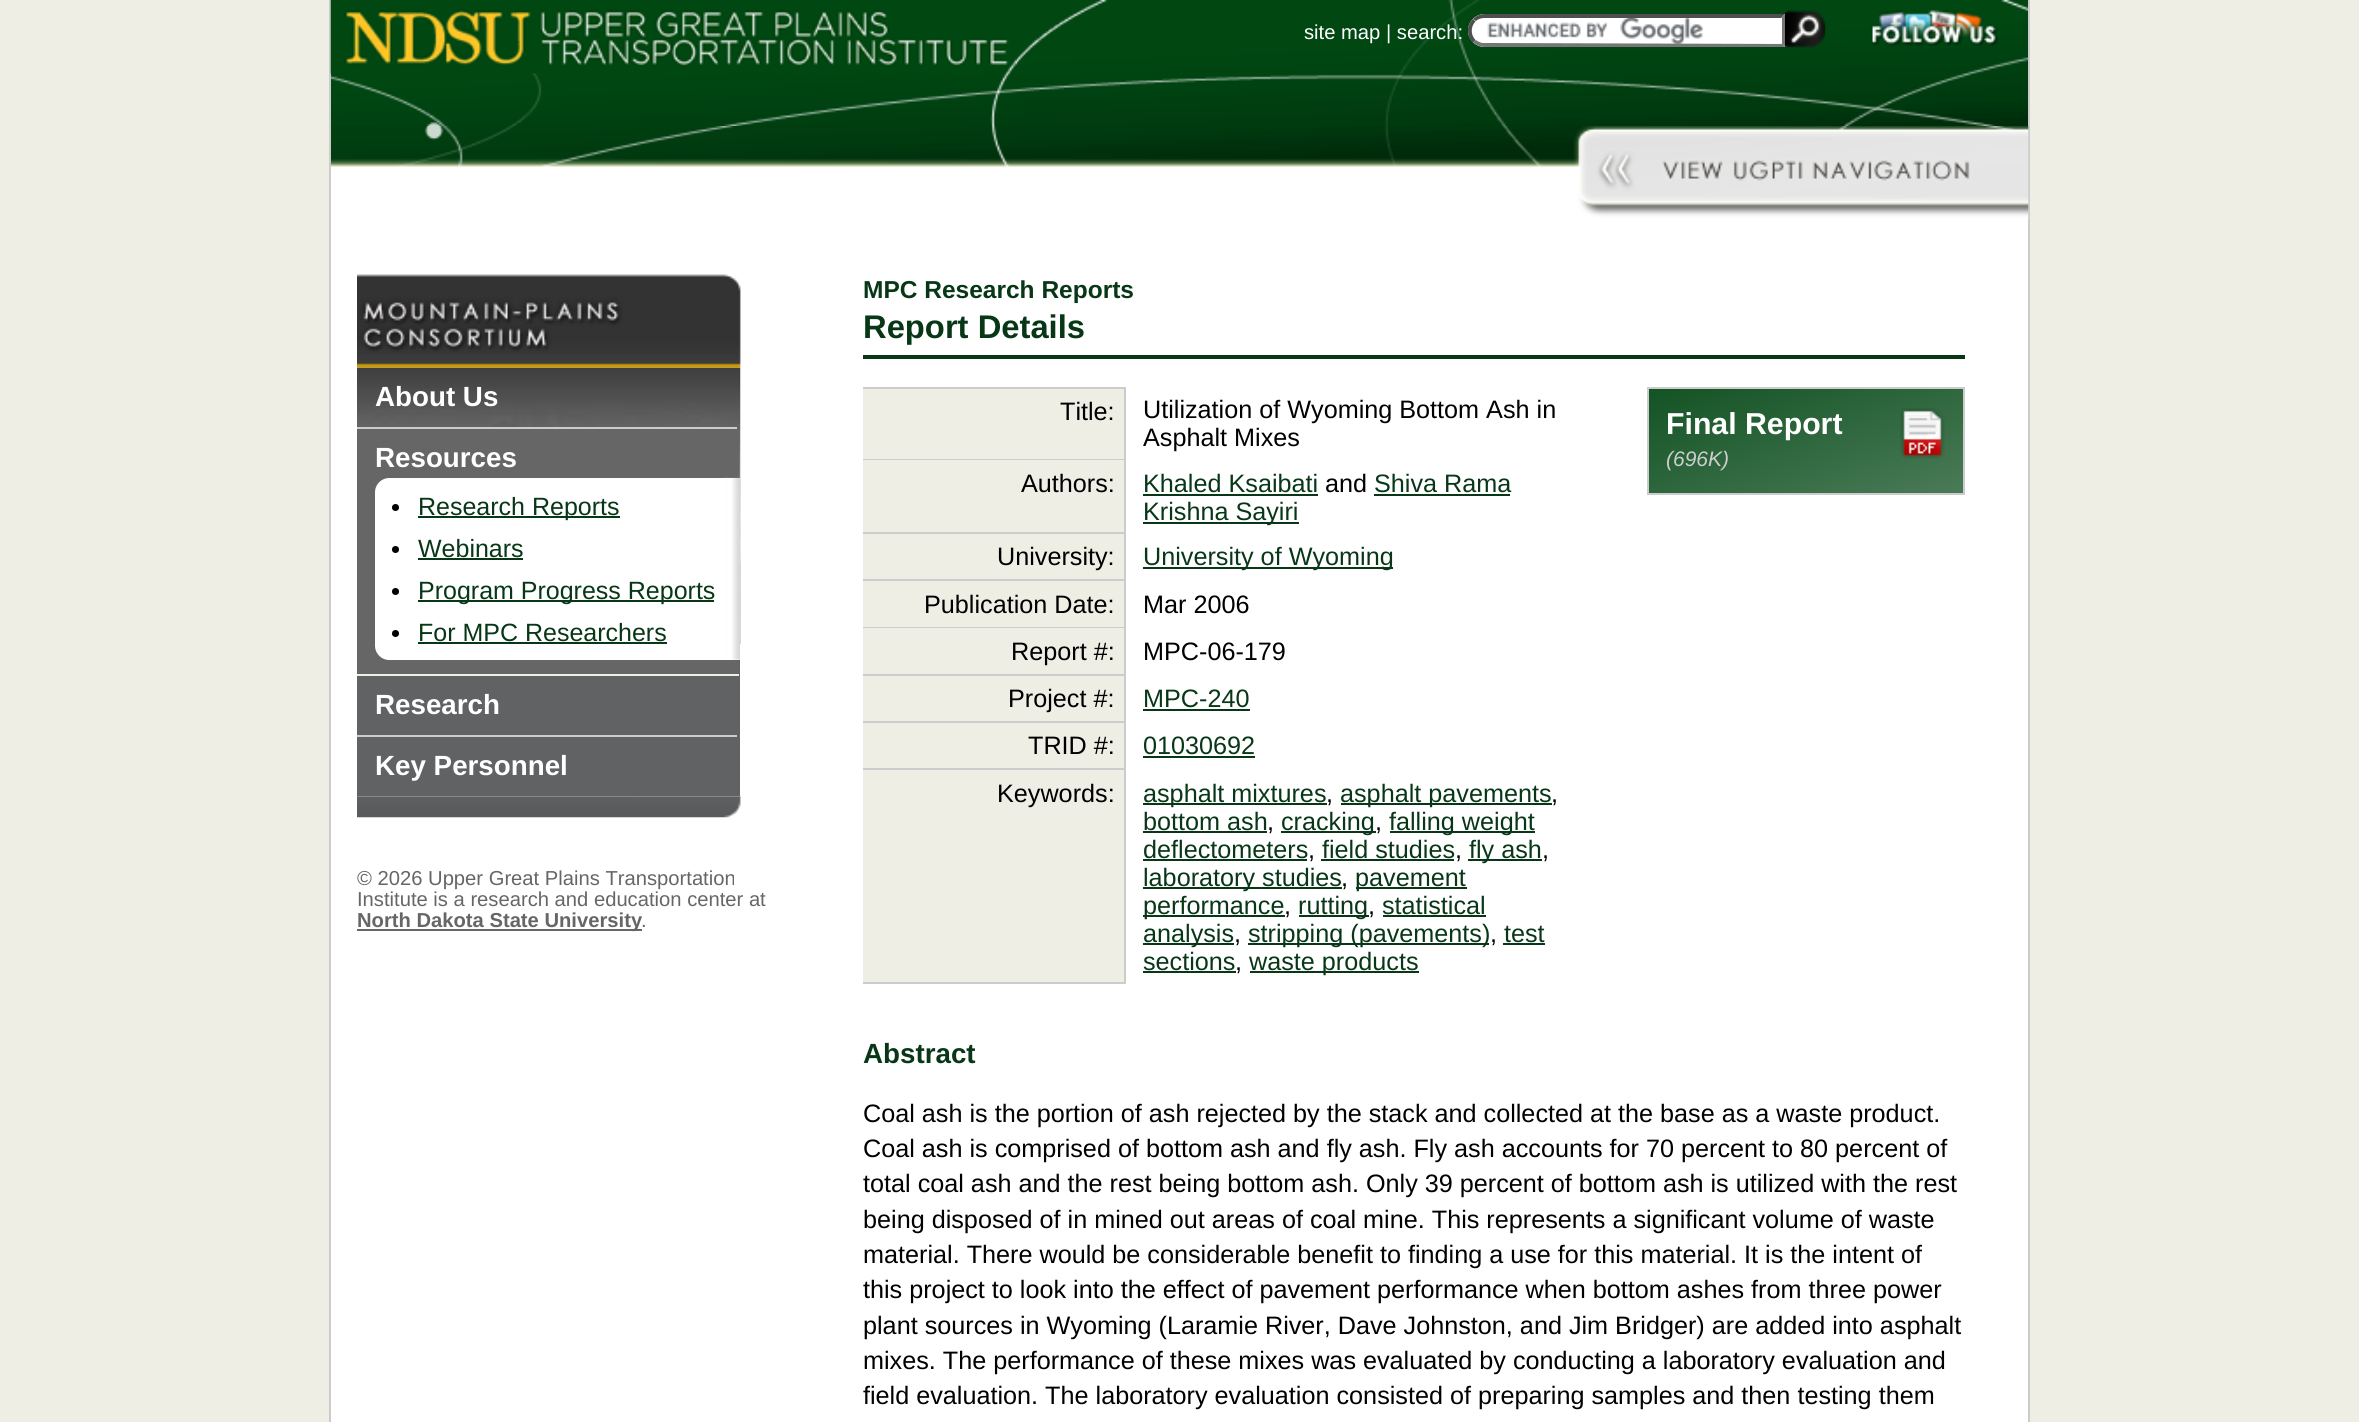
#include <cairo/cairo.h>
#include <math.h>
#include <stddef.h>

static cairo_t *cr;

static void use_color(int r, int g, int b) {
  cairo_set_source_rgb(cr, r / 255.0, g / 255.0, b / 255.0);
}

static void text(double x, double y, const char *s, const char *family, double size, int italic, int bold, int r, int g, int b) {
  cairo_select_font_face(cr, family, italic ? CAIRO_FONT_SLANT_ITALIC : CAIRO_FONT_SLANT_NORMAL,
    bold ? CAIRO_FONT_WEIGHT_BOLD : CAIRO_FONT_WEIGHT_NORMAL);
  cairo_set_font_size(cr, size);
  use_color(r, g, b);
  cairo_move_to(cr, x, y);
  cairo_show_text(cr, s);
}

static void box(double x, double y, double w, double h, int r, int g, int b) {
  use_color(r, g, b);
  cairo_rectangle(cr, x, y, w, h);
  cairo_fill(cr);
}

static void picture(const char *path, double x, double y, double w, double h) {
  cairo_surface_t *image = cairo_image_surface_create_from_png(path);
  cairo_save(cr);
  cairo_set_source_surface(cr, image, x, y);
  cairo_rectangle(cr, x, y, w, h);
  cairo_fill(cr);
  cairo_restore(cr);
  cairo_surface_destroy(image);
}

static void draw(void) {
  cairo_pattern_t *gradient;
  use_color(238, 238, 228);
  cairo_paint(cr);
  picture("img_01.png", 331, 0, 1697, 126);
  box(2028, 0, 2, 1422, 204, 204, 204);
  box(329, 0, 2, 1422, 204, 204, 204);
  picture("img_02.png", 330, 0, 687, 74);
  use_color(255, 255, 255);
  cairo_new_path(cr);
  cairo_move_to(cr, 1484.5, 14);
  cairo_line_to(cr, 1785, 14);
  cairo_line_to(cr, 1785, 47);
  cairo_line_to(cr, 1484.5, 47);
  cairo_curve_to(cr, 1475.5, 47, 1468, 39.5, 1468, 30.5);
  cairo_curve_to(cr, 1468, 21.5, 1475.5, 14, 1484.5, 14);
  cairo_close_path(cr);
  cairo_fill(cr);
  picture("img_03.png", 1487, 18, 216, 26);
  use_color(79, 79, 79);
  cairo_new_path(cr);
  cairo_move_to(cr, 1485, 14);
  cairo_curve_to(cr, 1480, 14, 1476, 16, 1473, 19);
  cairo_line_to(cr, 1476, 21);
  cairo_curve_to(cr, 1478, 19, 1481, 18, 1485, 18);
  cairo_line_to(cr, 1781, 18);
  cairo_line_to(cr, 1785, 14);
  cairo_close_path(cr);
  cairo_fill(cr);
  use_color(118, 118, 118);
  cairo_new_path(cr);
  cairo_move_to(cr, 1785, 14);
  cairo_line_to(cr, 1781, 18);
  cairo_line_to(cr, 1782, 18);
  cairo_line_to(cr, 1782, 44);
  cairo_line_to(cr, 1781.5, 44);
  cairo_line_to(cr, 1785, 47);
  cairo_close_path(cr);
  cairo_fill(cr);
  cairo_new_path(cr);
  cairo_move_to(cr, 1785, 47);
  cairo_line_to(cr, 1485, 47);
  cairo_curve_to(cr, 1480, 47, 1476, 45, 1473, 42);
  cairo_line_to(cr, 1476, 40);
  cairo_curve_to(cr, 1477, 41, 1479, 42, 1482, 43);
  cairo_line_to(cr, 1782, 44);
  cairo_close_path(cr);
  cairo_fill(cr);
  use_color(79, 79, 79);
  cairo_new_path(cr);
  cairo_move_to(cr, 1468, 28);
  cairo_curve_to(cr, 1469, 24.5, 1470.5, 21, 1473, 19);
  cairo_line_to(cr, 1475.5, 21.5);
  cairo_curve_to(cr, 1470.5, 26.5, 1470.5, 35, 1475.5, 40);
  cairo_line_to(cr, 1473, 42.5);
  cairo_curve_to(cr, 1468, 38, 1468, 34, 1468, 28);
  cairo_close_path(cr);
  cairo_fill(cr);
  picture("img_04.png", 1785, 10, 41, 38);
  picture("img_05.png", 1871, 10, 128, 36);
  box(331, 183, 1697, 1239, 255, 255, 255);
  picture("img_06.png", 331, 126, 1242, 58);
  picture("img_07.png", 1573, 126, 456, 93);
  picture("img_09.png", 357, 367, 384, 277);
  picture("img_08.png", 357, 274, 384, 94);
  box(357, 660, 383, 136, 97, 98, 100);
  box(357, 427, 380, 2, 204, 204, 204);
  box(357, 429, 382, 245, 102, 102, 102);
  box(357, 674, 382, 2, 238, 238, 228);
  use_color(255, 255, 255);
  cairo_new_path(cr);
  cairo_move_to(cr, 389, 478);
  cairo_line_to(cr, 740, 478);
  cairo_line_to(cr, 740, 660);
  cairo_line_to(cr, 389, 660);
  cairo_curve_to(cr, 381.5, 660, 375, 653.5, 375, 646);
  cairo_line_to(cr, 375, 492);
  cairo_curve_to(cr, 375, 484.5, 381.5, 478, 389, 478);
  cairo_close_path(cr);
  cairo_fill(cr);
  picture("img_10.png", 723, 477, 17, 183);
  use_color(0, 0, 0);
  cairo_arc(cr, 395.5, 507.5, 3.5, 0, 2 * M_PI);
  cairo_fill(cr);
  box(418, 516, 202, 2, 8, 55, 23);
  use_color(0, 0, 0);
  cairo_arc(cr, 395.5, 549.5, 3.5, 0, 2 * M_PI);
  cairo_fill(cr);
  box(418, 558, 105, 2, 8, 55, 23);
  use_color(0, 0, 0);
  cairo_arc(cr, 395.5, 591.5, 3.5, 0, 2 * M_PI);
  cairo_fill(cr);
  box(418, 600, 296, 2, 8, 55, 23);
  use_color(0, 0, 0);
  cairo_arc(cr, 395.5, 633.5, 3.5, 0, 2 * M_PI);
  cairo_fill(cr);
  box(418, 642, 249, 2, 8, 55, 23);
  box(357, 735, 380, 2, 204, 204, 204);
  picture("img_11.png", 357, 796, 384, 22);
  box(357, 929, 285, 2, 102, 102, 102);
  box(863, 355, 1102, 4, 8, 55, 23);
  box(863, 389, 261, 70, 238, 238, 228);
  box(863, 387, 262, 2, 204, 204, 204);
  box(1124, 387, 2, 597, 204, 204, 204);
  box(863, 459, 262, 1, 204, 204, 204);
  box(863, 460, 261, 72, 238, 238, 228);
  box(863, 532, 262, 2, 204, 204, 204);
  box(1143, 494, 175, 2, 8, 55, 23);
  box(1374, 494, 136, 2, 8, 55, 23);
  box(1143, 522, 156, 2, 8, 55, 23);
  box(863, 534, 261, 45, 238, 238, 228);
  box(863, 579, 262, 2, 204, 204, 204);
  box(1143, 567, 250, 2, 8, 55, 23);
  box(863, 581, 261, 46, 238, 238, 228);
  box(863, 627, 262, 1, 204, 204, 204);
  box(863, 628, 261, 46, 238, 238, 228);
  box(863, 674, 262, 2, 204, 204, 204);
  box(863, 676, 261, 45, 238, 238, 228);
  box(863, 721, 262, 2, 204, 204, 204);
  box(1143, 709, 107, 2, 8, 55, 23);
  box(863, 723, 261, 45, 238, 238, 228);
  box(863, 768, 262, 2, 204, 204, 204);
  box(1143, 756, 112, 2, 8, 55, 23);
  box(863, 770, 261, 212, 238, 238, 228);
  box(863, 982, 262, 2, 204, 204, 204);
  box(1143, 803, 184, 2, 8, 55, 23);
  box(1341, 803, 211, 2, 8, 55, 23);
  box(1143, 831, 124, 2, 8, 55, 23);
  box(1281, 831, 95, 2, 8, 55, 23);
  box(1390, 831, 145, 2, 8, 55, 23);
  box(1143, 859, 164, 2, 8, 55, 23);
  box(1321, 859, 133, 2, 8, 55, 23);
  box(1468, 859, 74, 2, 8, 55, 23);
  box(1143, 887, 199, 2, 8, 55, 23);
  box(1356, 887, 111, 2, 8, 55, 23);
  box(1143, 915, 142, 2, 8, 55, 23);
  box(1299, 915, 70, 2, 8, 55, 23);
  box(1383, 915, 103, 2, 8, 55, 23);
  box(1143, 943, 91, 2, 8, 55, 23);
  box(1248, 943, 241, 2, 8, 55, 23);
  box(1503, 943, 42, 2, 8, 55, 23);
  box(1143, 971, 93, 2, 8, 55, 23);
  box(1250, 971, 169, 2, 8, 55, 23);
  gradient = cairo_pattern_create_linear(1841, 538, 1771, 344);
  cairo_pattern_add_color_stop_rgba(gradient, 0, 0.29, 0.482, 0.341, 1);
  cairo_pattern_add_color_stop_rgba(gradient, 1, 0.075, 0.325, 0.141, 1);
  cairo_set_source(cr, gradient);
  cairo_pattern_destroy(gradient);
  cairo_rectangle(cr, 1649, 389, 314, 104);
  cairo_fill(cr);
  cairo_rectangle(cr, 1648, 388, 316, 106);
  use_color(204, 204, 204);
  cairo_stroke(cr);
  picture("img_12.png", 1900, 408, 45, 51);
  text(1304, 39, "site map | search:", "Liberation Sans", 20.2, 0, 0, 255, 255, 255);
  text(375, 406, "About Us", "Liberation Sans", 27.75, 0, 1, 255, 255, 255);
  text(375, 467, "Resources", "Liberation Sans", 27.75, 0, 1, 255, 255, 255);
  text(418, 515, "Research Reports", "Liberation Sans", 25, 0, 0, 8, 55, 23);
  text(418, 557, "Webinars", "Liberation Sans", 25, 0, 0, 8, 55, 23);
  text(418, 599, "Program Progress Reports", "Liberation Sans", 25, 0, 0, 8, 55, 23);
  text(418, 641, "For MPC Researchers", "Liberation Sans", 25, 0, 0, 8, 55, 23);
  text(375, 714, "Research", "Liberation Sans", 27.75, 0, 1, 255, 255, 255);
  text(375, 775, "Key Personnel", "Liberation Sans", 27.75, 0, 1, 255, 255, 255);
  text(357, 885, "© 2026 Upper Great Plains Transportation", "Liberation Sans", 20.2, 0, 0, 102, 102, 102);
  text(357, 906, "Institute is a research and education center at", "Liberation Sans", 20.2, 0, 0, 102, 102, 102);
  text(357, 927, "North Dakota State University", "Liberation Sans", 20.2, 0, 1, 102, 102, 102);
  text(641, 927, ".", "Liberation Sans", 20.2, 0, 0, 102, 102, 102);
  text(863, 298, "MPC Research Reports", "Liberation Sans", 24.5, 0, 1, 8, 55, 23);
  text(863, 338, "Report Details", "Liberation Sans", 32.75, 0, 1, 8, 55, 23);
  text(1060, 420, "Title:", "Liberation Sans", 25.2, 0, 0, 0, 0, 0);
  text(1143, 418, "Utilization of Wyoming Bottom Ash in", "Liberation Sans", 25.2, 0, 0, 0, 0, 0);
  text(1143, 446, "Asphalt Mixes", "Liberation Sans", 25.2, 0, 0, 0, 0, 0);
  text(1021, 492, "Authors:", "Liberation Sans", 25.2, 0, 0, 0, 0, 0);
  text(1143, 492, "Khaled Ksaibati", "Liberation Sans", 25.2, 0, 0, 8, 55, 23);
  text(1325, 492, "and", "Liberation Sans", 25.2, 0, 0, 0, 0, 0);
  text(1374, 492, "Shiva Rama", "Liberation Sans", 25.2, 0, 0, 8, 55, 23);
  text(1143, 520, "Krishna Sayiri", "Liberation Sans", 25.2, 0, 0, 8, 55, 23);
  text(997, 565, "University:", "Liberation Sans", 25.2, 0, 0, 0, 0, 0);
  text(1143, 565, "University of Wyoming", "Liberation Sans", 25.2, 0, 0, 8, 55, 23);
  text(924, 613, "Publication Date:", "Liberation Sans", 25.2, 0, 0, 0, 0, 0);
  text(1143, 613, "Mar 2006", "Liberation Sans", 25.2, 0, 0, 0, 0, 0);
  text(1011, 660, "Report #:", "Liberation Sans", 25.2, 0, 0, 0, 0, 0);
  text(1143, 660, "MPC-06-179", "Liberation Sans", 25.2, 0, 0, 0, 0, 0);
  text(1008, 707, "Project #:", "Liberation Sans", 25.2, 0, 0, 0, 0, 0);
  text(1143, 707, "MPC-240", "Liberation Sans", 25.2, 0, 0, 8, 55, 23);
  text(1028, 754, "TRID #:", "Liberation Sans", 25.2, 0, 0, 0, 0, 0);
  text(1143, 754, "01030692", "Liberation Sans", 25.2, 0, 0, 8, 55, 23);
  text(997, 802, "Keywords:", "Liberation Sans", 25.2, 0, 0, 0, 0, 0);
  text(1143, 802, "asphalt mixtures", "Liberation Sans", 25.2, 0, 0, 8, 55, 23);
  text(1326, 802, ",", "Liberation Sans", 25.2, 0, 0, 0, 0, 0);
  text(1340, 802, "asphalt pavements", "Liberation Sans", 25.2, 0, 0, 8, 55, 23);
  text(1551, 802, ",", "Liberation Sans", 25.2, 0, 0, 0, 0, 0);
  text(1143, 830, "bottom ash", "Liberation Sans", 25.2, 0, 0, 8, 55, 23);
  text(1267, 830, ",", "Liberation Sans", 25.2, 0, 0, 0, 0, 0);
  text(1281, 830, "cracking", "Liberation Sans", 25.2, 0, 0, 8, 55, 23);
  text(1375, 830, ",", "Liberation Sans", 25.2, 0, 0, 0, 0, 0);
  text(1389, 830, "falling weight", "Liberation Sans", 25.2, 0, 0, 8, 55, 23);
  text(1143, 858, "deflectometers", "Liberation Sans", 25.2, 0, 0, 8, 55, 23);
  text(1308, 858, ",", "Liberation Sans", 25.2, 0, 0, 0, 0, 0);
  text(1322, 858, "field studies", "Liberation Sans", 25.2, 0, 0, 8, 55, 23);
  text(1455, 858, ",", "Liberation Sans", 25.2, 0, 0, 0, 0, 0);
  text(1469, 858, "fly ash", "Liberation Sans", 25.2, 0, 0, 8, 55, 23);
  text(1542, 858, ",", "Liberation Sans", 25.2, 0, 0, 0, 0, 0);
  text(1143, 886, "laboratory studies", "Liberation Sans", 25.2, 0, 0, 8, 55, 23);
  text(1341, 886, ",", "Liberation Sans", 25.2, 0, 0, 0, 0, 0);
  text(1355, 886, "pavement", "Liberation Sans", 25.2, 0, 0, 8, 55, 23);
  text(1143, 914, "performance", "Liberation Sans", 25.2, 0, 0, 8, 55, 23);
  text(1284, 914, ",", "Liberation Sans", 25.2, 0, 0, 0, 0, 0);
  text(1298, 914, "rutting", "Liberation Sans", 25.2, 0, 0, 8, 55, 23);
  text(1368, 914, ",", "Liberation Sans", 25.2, 0, 0, 0, 0, 0);
  text(1382, 914, "statistical", "Liberation Sans", 25.2, 0, 0, 8, 55, 23);
  text(1143, 942, "analysis", "Liberation Sans", 25.2, 0, 0, 8, 55, 23);
  text(1234, 942, ",", "Liberation Sans", 25.2, 0, 0, 0, 0, 0);
  text(1248, 942, "stripping (pavements)", "Liberation Sans", 25.2, 0, 0, 8, 55, 23);
  text(1490, 942, ",", "Liberation Sans", 25.2, 0, 0, 0, 0, 0);
  text(1504, 942, "test", "Liberation Sans", 25.2, 0, 0, 8, 55, 23);
  text(1143, 970, "sections", "Liberation Sans", 25.2, 0, 0, 8, 55, 23);
  text(1235, 970, ",", "Liberation Sans", 25.2, 0, 0, 0, 0, 0);
  text(1249, 970, "waste products", "Liberation Sans", 25.2, 0, 0, 8, 55, 23);
  text(1666, 434, "Final Report", "Liberation Sans", 30.25, 0, 1, 255, 255, 255);
  text(1666, 466, "(696K)", "Liberation Sans", 21, 1, 0, 205, 205, 205);
  text(863, 1063, "Abstract", "Liberation Sans", 27.75, 0, 1, 8, 55, 23);
  text(863, 1122, "Coal ash is the portion of ash rejected by the stack and collected at the base as a waste product.", "Liberation Sans", 25.2, 0, 0, 0, 0, 0);
  text(863, 1157, "Coal ash is comprised of bottom ash and fly ash. Fly ash accounts for 70 percent to 80 percent of", "Liberation Sans", 25.2, 0, 0, 0, 0, 0);
  text(863, 1192, "total coal ash and the rest being bottom ash. Only 39 percent of bottom ash is utilized with the rest", "Liberation Sans", 25.2, 0, 0, 0, 0, 0);
  text(863, 1228, "being disposed of in mined out areas of coal mine. This represents a significant volume of waste", "Liberation Sans", 25.2, 0, 0, 0, 0, 0);
  text(863, 1263, "material. There would be considerable benefit to finding a use for this material. It is the intent of", "Liberation Sans", 25.2, 0, 0, 0, 0, 0);
  text(863, 1298, "this project to look into the effect of pavement performance when bottom ashes from three power", "Liberation Sans", 25.2, 0, 0, 0, 0, 0);
  text(863, 1334, "plant sources in Wyoming (Laramie River, Dave Johnston, and Jim Bridger) are added into asphalt", "Liberation Sans", 25.2, 0, 0, 0, 0, 0);
  text(863, 1369, "mixes. The performance of these mixes was evaluated by conducting a laboratory evaluation and", "Liberation Sans", 25.2, 0, 0, 0, 0, 0);
  text(863, 1404, "field evaluation. The laboratory evaluation consisted of preparing samples and then testing them", "Liberation Sans", 25.2, 0, 0, 0, 0, 0);
}

int main(void) {
  cairo_surface_t *surface = cairo_image_surface_create(CAIRO_FORMAT_RGB24, 2359, 1422);
  cr = cairo_create(surface);
  cairo_font_options_t *options = cairo_font_options_create();
  cairo_font_options_set_hint_metrics(options, CAIRO_HINT_METRICS_OFF);
  cairo_font_options_set_hint_style(options, CAIRO_HINT_STYLE_NONE);
  cairo_set_font_options(cr, options);
  cairo_set_miter_limit(cr, 4);
  draw();
  cairo_surface_write_to_png(surface, "out.png");
  cairo_font_options_destroy(options);
  cairo_destroy(cr);
  cairo_surface_destroy(surface);
  return 0;
}
